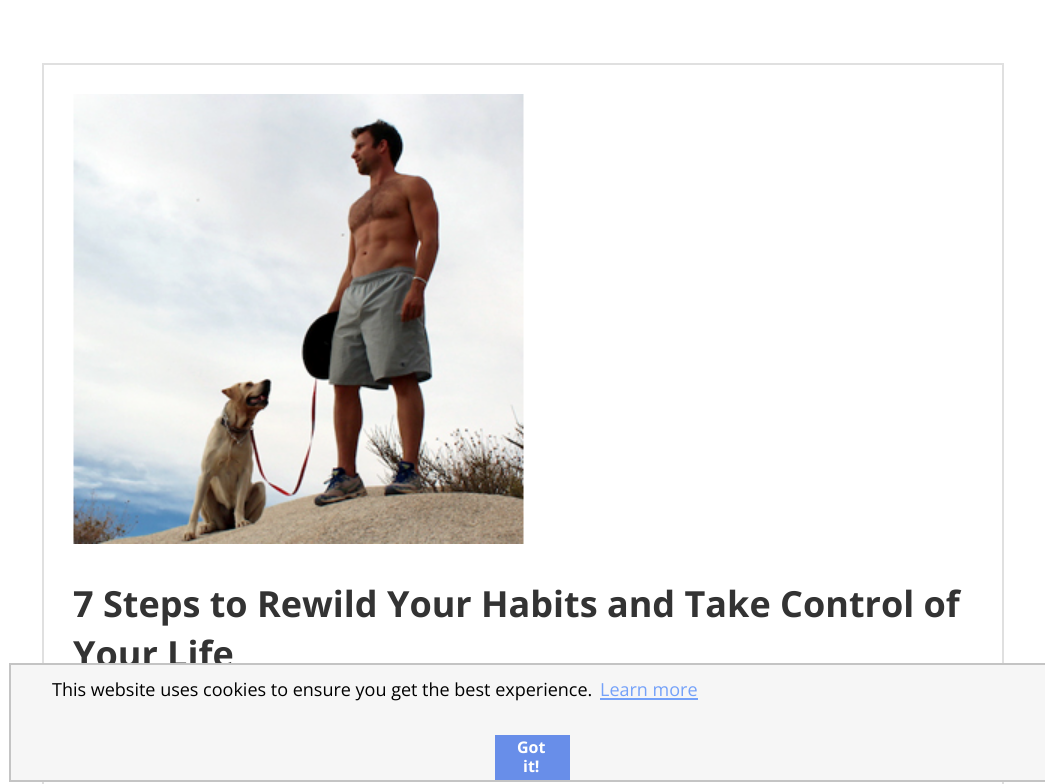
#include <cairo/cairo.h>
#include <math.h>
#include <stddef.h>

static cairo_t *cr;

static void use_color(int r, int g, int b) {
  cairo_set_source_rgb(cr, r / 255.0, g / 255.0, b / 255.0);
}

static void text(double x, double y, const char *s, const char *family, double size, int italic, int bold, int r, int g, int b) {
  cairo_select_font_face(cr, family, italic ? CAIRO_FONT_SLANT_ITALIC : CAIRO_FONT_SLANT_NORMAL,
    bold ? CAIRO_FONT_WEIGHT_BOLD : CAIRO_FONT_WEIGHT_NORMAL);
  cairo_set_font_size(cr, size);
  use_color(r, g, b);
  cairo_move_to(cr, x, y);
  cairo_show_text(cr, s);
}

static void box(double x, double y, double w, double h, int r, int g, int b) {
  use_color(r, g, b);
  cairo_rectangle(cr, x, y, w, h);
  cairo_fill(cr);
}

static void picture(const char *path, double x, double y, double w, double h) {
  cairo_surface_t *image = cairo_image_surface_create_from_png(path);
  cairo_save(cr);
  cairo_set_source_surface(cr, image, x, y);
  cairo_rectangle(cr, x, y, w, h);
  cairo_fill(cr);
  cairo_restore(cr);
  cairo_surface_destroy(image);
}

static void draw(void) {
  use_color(255, 255, 255);
  cairo_paint(cr);
  cairo_rectangle(cr, 43, 64, 960, 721);
  use_color(224, 224, 224);
  cairo_stroke(cr);
  picture("img_01.png", 73, 94, 451, 450);
  text(73, 617, "7 Steps to Rewild Your Habits and Take Control of", "Open Sans", 36, 0, 1, 51, 51, 51);
  text(73, 667, "Your Life", "Open Sans", 36, 0, 1, 51, 51, 51);
  use_color(246, 246, 246);
  cairo_rectangle(cr, 10, 664, 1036, 117);
  cairo_fill_preserve(cr);
  use_color(196, 196, 196);
  cairo_stroke(cr);
  text(52, 696, "This website uses cookies to ensure you get the best experience.", "Open Sans", 18, 0, 0, 0, 0, 0);
  text(600, 696, "Learn more", "Open Sans", 18, 0, 0, 116, 161, 249);
  box(600, 698, 98, 2, 116, 161, 249);
  box(495, 735, 75, 45, 104, 142, 233);
  text(517, 753, "Got", "Open Sans", 16, 0, 1, 255, 255, 255);
  text(523, 772, "it!", "Open Sans", 16, 0, 1, 255, 255, 255);
}

int main(void) {
  cairo_surface_t *surface = cairo_image_surface_create(CAIRO_FORMAT_RGB24, 1045, 784);
  cr = cairo_create(surface);
  cairo_font_options_t *options = cairo_font_options_create();
  cairo_font_options_set_hint_metrics(options, CAIRO_HINT_METRICS_OFF);
  cairo_font_options_set_hint_style(options, CAIRO_HINT_STYLE_NONE);
  cairo_set_font_options(cr, options);
  cairo_set_miter_limit(cr, 4);
  draw();
  cairo_surface_write_to_png(surface, "out.png");
  cairo_font_options_destroy(options);
  cairo_destroy(cr);
  cairo_surface_destroy(surface);
  return 0;
}
